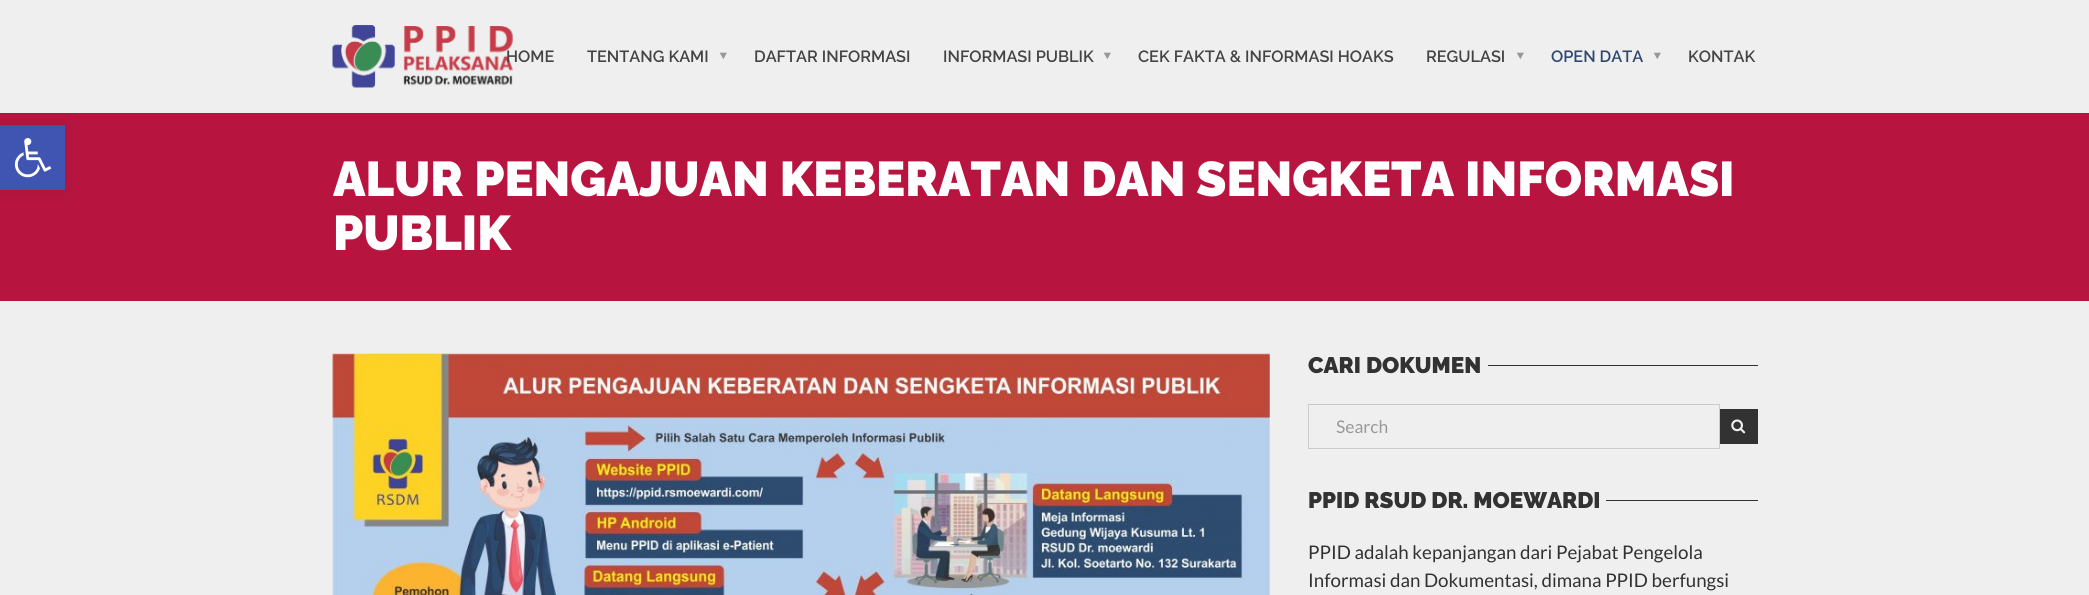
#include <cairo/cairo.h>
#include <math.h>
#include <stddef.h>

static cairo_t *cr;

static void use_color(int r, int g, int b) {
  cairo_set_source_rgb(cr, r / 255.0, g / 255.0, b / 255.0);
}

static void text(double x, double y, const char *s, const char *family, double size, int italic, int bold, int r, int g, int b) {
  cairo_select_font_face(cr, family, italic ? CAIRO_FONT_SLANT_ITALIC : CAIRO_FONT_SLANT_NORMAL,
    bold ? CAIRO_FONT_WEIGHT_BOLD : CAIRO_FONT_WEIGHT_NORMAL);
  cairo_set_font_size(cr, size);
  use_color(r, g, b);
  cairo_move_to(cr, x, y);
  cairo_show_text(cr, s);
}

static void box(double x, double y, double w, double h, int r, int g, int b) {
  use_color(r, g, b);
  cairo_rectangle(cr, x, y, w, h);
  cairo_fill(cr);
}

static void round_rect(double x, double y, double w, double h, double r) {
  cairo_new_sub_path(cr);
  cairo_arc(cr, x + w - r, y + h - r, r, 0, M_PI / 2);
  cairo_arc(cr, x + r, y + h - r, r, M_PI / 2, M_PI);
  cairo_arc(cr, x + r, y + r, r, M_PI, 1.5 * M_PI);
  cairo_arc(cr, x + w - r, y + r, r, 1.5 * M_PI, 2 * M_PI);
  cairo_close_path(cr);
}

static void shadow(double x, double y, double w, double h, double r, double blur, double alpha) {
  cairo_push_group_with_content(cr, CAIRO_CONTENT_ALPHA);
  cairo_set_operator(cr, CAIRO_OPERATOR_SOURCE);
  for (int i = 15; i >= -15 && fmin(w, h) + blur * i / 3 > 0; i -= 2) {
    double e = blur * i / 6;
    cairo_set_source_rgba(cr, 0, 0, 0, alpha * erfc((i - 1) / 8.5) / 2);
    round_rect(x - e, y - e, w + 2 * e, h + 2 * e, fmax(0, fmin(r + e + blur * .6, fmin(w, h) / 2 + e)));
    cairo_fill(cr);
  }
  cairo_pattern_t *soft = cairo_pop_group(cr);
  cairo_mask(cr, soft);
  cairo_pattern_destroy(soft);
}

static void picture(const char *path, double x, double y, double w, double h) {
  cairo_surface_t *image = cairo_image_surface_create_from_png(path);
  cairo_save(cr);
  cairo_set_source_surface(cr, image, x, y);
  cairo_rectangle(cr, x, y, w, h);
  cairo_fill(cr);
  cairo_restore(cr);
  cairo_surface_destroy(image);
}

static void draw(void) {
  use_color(239, 239, 239);
  cairo_paint(cr);
  box(0, 113, 2089, 188, 183, 21, 64);
  use_color(0, 0, 0);
  shadow(0, 0, 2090, 113, 0, 0.5, 0.2);
  box(0, 0, 2089, 113, 239, 239, 239);
  use_color(0, 0, 0);
  shadow(0, 125, 65, 65, 0, 6, 0.1);
  box(0, 125, 65, 65, 64, 84, 178);
  picture("img_01.png", 14, 138, 38, 40);
  picture("img_02.png", 332, 25, 181, 63);
  picture("img_03.png", 332, 353, 938, 242);
  box(1488, 365, 270, 1, 50, 50, 50);
  cairo_rectangle(cr, 1308.5, 404.5, 411, 44);
  use_color(203, 203, 203);
  cairo_set_line_width(cr, 1);
  cairo_stroke(cr);
  box(1720, 409, 38, 35, 50, 50, 50);
  picture("img_04.png", 1731, 419, 15, 15);
  box(1606, 500, 152, 1, 50, 50, 50);
  text(506, 62, "HOME", "Raleway SemiBold", 16.25, 0, 0, 68, 68, 68);
  text(587, 62, "TENTANG KAMI", "Raleway SemiBold", 16.25, 0, 0, 68, 68, 68);
  cairo_save(cr);
  cairo_translate(cr, 714, 51);
  cairo_rotate(cr, 90 * M_PI / 180);
  text(0, 0, "‣", "Noto Sans", 25, 0, 0, 153, 153, 153);
  cairo_restore(cr);
  text(754, 62, "DAFTAR INFORMASI", "Raleway SemiBold", 16.25, 0, 0, 68, 68, 68);
  text(943, 62, "INFORMASI PUBLIK", "Raleway SemiBold", 16.25, 0, 0, 68, 68, 68);
  cairo_save(cr);
  cairo_translate(cr, 1098, 51);
  cairo_rotate(cr, 90 * M_PI / 180);
  text(0, 0, "‣", "Noto Sans", 25, 0, 0, 153, 153, 153);
  cairo_restore(cr);
  text(1138, 62, "CEK FAKTA & INFORMASI HOAKS", "Raleway SemiBold", 16.25, 0, 0, 68, 68, 68);
  text(1426, 62, "REGULASI", "Raleway SemiBold", 16.25, 0, 0, 68, 68, 68);
  cairo_save(cr);
  cairo_translate(cr, 1511, 51);
  cairo_rotate(cr, 90 * M_PI / 180);
  text(0, 0, "‣", "Noto Sans", 25, 0, 0, 153, 153, 153);
  cairo_restore(cr);
  text(1551, 62, "OPEN DATA", "Raleway SemiBold", 16.25, 0, 0, 48, 71, 112);
  cairo_save(cr);
  cairo_translate(cr, 1648, 51);
  cairo_rotate(cr, 90 * M_PI / 180);
  text(0, 0, "‣", "Noto Sans", 25, 0, 0, 153, 153, 153);
  cairo_restore(cr);
  text(1688, 62, "KONTAK", "Raleway SemiBold", 16.25, 0, 0, 68, 68, 68);
  text(333, 196, "ALUR PENGAJUAN KEBERATAN DAN SENGKETA INFORMASI", "Raleway Black", 48.75, 0, 0, 255, 255, 255);
  text(333, 250, "PUBLIK", "Raleway Black", 48.75, 0, 0, 255, 255, 255);
  text(1308, 373, "CARI DOKUMEN", "Raleway Black", 22.5, 0, 0, 50, 50, 50);
  text(1336, 433, "Search", "Lato", 17.5, 0, 0, 153, 153, 153);
  text(1308, 508, "PPID RSUD DR. MOEWARDI", "Raleway Black", 22.5, 0, 0, 50, 50, 50);
  text(1308, 559, "PPID adalah kepanjangan dari Pejabat Pengelola", "Lato", 18.75, 0, 0, 50, 50, 50);
  text(1308, 587, "Informasi dan Dokumentasi, dimana PPID berfungsi", "Lato", 18.75, 0, 0, 50, 50, 50);
}

int main(void) {
  cairo_surface_t *surface = cairo_image_surface_create(CAIRO_FORMAT_RGB24, 2089, 595);
  cr = cairo_create(surface);
  cairo_font_options_t *options = cairo_font_options_create();
  cairo_font_options_set_hint_metrics(options, CAIRO_HINT_METRICS_OFF);
  cairo_font_options_set_hint_style(options, CAIRO_HINT_STYLE_NONE);
  cairo_set_font_options(cr, options);
  cairo_set_miter_limit(cr, 4);
  draw();
  cairo_surface_write_to_png(surface, "out.png");
  cairo_font_options_destroy(options);
  cairo_destroy(cr);
  cairo_surface_destroy(surface);
  return 0;
}
